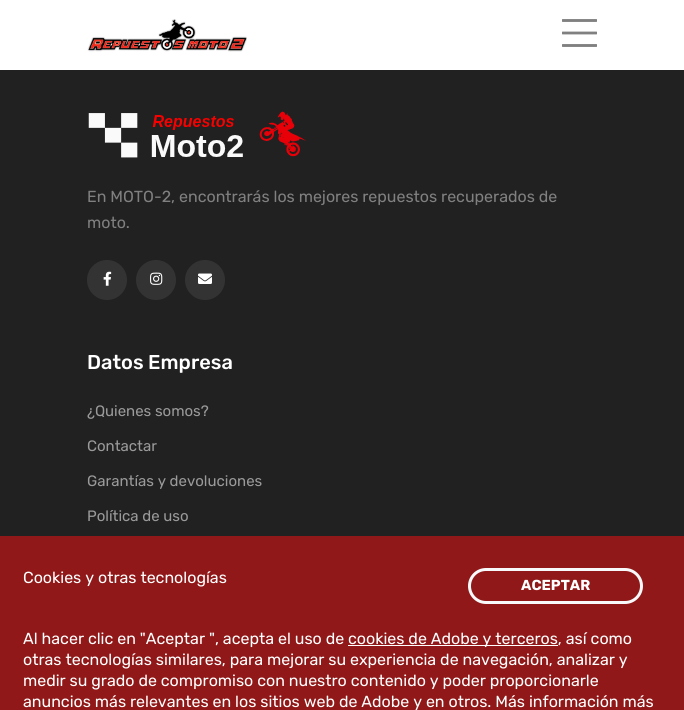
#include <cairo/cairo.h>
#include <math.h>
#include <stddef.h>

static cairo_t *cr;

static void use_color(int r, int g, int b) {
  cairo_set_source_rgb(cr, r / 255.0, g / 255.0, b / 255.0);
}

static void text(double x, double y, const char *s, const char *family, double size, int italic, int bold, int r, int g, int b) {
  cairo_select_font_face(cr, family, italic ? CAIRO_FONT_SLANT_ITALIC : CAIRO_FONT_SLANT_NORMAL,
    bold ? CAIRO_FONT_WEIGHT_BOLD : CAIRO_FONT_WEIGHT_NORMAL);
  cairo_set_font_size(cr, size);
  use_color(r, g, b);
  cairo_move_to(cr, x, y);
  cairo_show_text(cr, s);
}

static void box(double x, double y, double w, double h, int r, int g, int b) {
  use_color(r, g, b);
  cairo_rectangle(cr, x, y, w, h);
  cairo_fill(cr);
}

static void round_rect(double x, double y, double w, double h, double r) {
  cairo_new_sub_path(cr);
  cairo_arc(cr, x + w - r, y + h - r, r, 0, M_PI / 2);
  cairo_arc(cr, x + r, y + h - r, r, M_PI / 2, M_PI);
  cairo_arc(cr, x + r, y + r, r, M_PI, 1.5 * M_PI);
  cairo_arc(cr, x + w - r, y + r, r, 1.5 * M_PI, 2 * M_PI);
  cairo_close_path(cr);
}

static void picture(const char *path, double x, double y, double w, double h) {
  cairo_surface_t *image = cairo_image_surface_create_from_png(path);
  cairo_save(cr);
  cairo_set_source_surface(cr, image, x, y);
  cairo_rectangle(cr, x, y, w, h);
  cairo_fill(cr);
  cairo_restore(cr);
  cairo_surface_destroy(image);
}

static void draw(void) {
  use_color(33, 33, 33);
  cairo_paint(cr);
  box(0, 0, 684, 70, 255, 255, 255);
  picture("img_01.png", 87, 19, 160, 33);
  picture("img_02.png", 562, 19, 35, 28);
  picture("img_03.png", 88, 111, 218, 47);
  use_color(51, 51, 51);
  cairo_arc(cr, 107, 280, 20, 0, 2 * M_PI);
  cairo_fill(cr);
  picture("img_04.png", 103, 271, 9, 15);
  cairo_arc(cr, 156, 280, 20, 0, 2 * M_PI);
  cairo_fill(cr);
  picture("img_05.png", 150, 272, 13, 13);
  cairo_arc(cr, 205, 280, 20, 0, 2 * M_PI);
  cairo_fill(cr);
  picture("img_06.png", 198, 273, 14, 11);
  box(0, 536, 684, 174, 145, 24, 24);
  round_rect(469.5, 569.5, 172, 33, 16.5);
  use_color(248, 249, 250);
  cairo_set_line_width(cr, 3);
  cairo_stroke(cr);
  box(348, 645, 210, 1, 255, 255, 255);
  text(87, 202, "En MOTO-2, encontrarás los mejores repuestos recuperados de", "Rubik", 16, 0, 0, 128, 128, 128);
  text(87, 228, "moto.", "Rubik", 16, 0, 0, 128, 128, 128);
  text(87, 369, "Datos Empresa", "Rubik Medium", 20, 0, 0, 255, 255, 255);
  text(87, 416, "¿Quienes somos?", "Rubik", 15, 0, 0, 154, 154, 154);
  text(87, 451, "Contactar", "Rubik", 15, 0, 0, 154, 154, 154);
  text(87, 486, "Garantías y devoluciones", "Rubik", 15, 0, 0, 154, 154, 154);
  text(87, 521, "Política de uso", "Rubik", 15, 0, 0, 154, 154, 154);
  text(23, 583, "Cookies y otras tecnologías", "Rubik", 16, 0, 0, 255, 255, 255);
  text(521, 590, "ACEPTAR", "Rubik", 14.5, 0, 1, 255, 255, 255);
  text(23, 644, "Al hacer clic en \"Aceptar \", acepta el uso de", "Rubik", 16, 0, 0, 255, 255, 255);
  text(348, 644, "cookies de Adobe y terceros, así como", "Rubik", 16, 0, 0, 255, 255, 255);
  text(23, 665, "otras tecnologías similares, para mejorar su experiencia de navegación, analizar y", "Rubik", 16, 0, 0, 255, 255, 255);
  text(23, 686, "medir su grado de compromiso con nuestro contenido y poder proporcionarle", "Rubik", 16, 0, 0, 255, 255, 255);
  text(23, 707, "anuncios más relevantes en los sitios web de Adobe y en otros. Más información más", "Rubik", 16, 0, 0, 255, 255, 255);
}

int main(void) {
  cairo_surface_t *surface = cairo_image_surface_create(CAIRO_FORMAT_RGB24, 684, 710);
  cr = cairo_create(surface);
  cairo_font_options_t *options = cairo_font_options_create();
  cairo_font_options_set_hint_metrics(options, CAIRO_HINT_METRICS_OFF);
  cairo_font_options_set_hint_style(options, CAIRO_HINT_STYLE_NONE);
  cairo_set_font_options(cr, options);
  cairo_set_miter_limit(cr, 4);
  draw();
  cairo_surface_write_to_png(surface, "out.png");
  cairo_font_options_destroy(options);
  cairo_destroy(cr);
  cairo_surface_destroy(surface);
  return 0;
}
